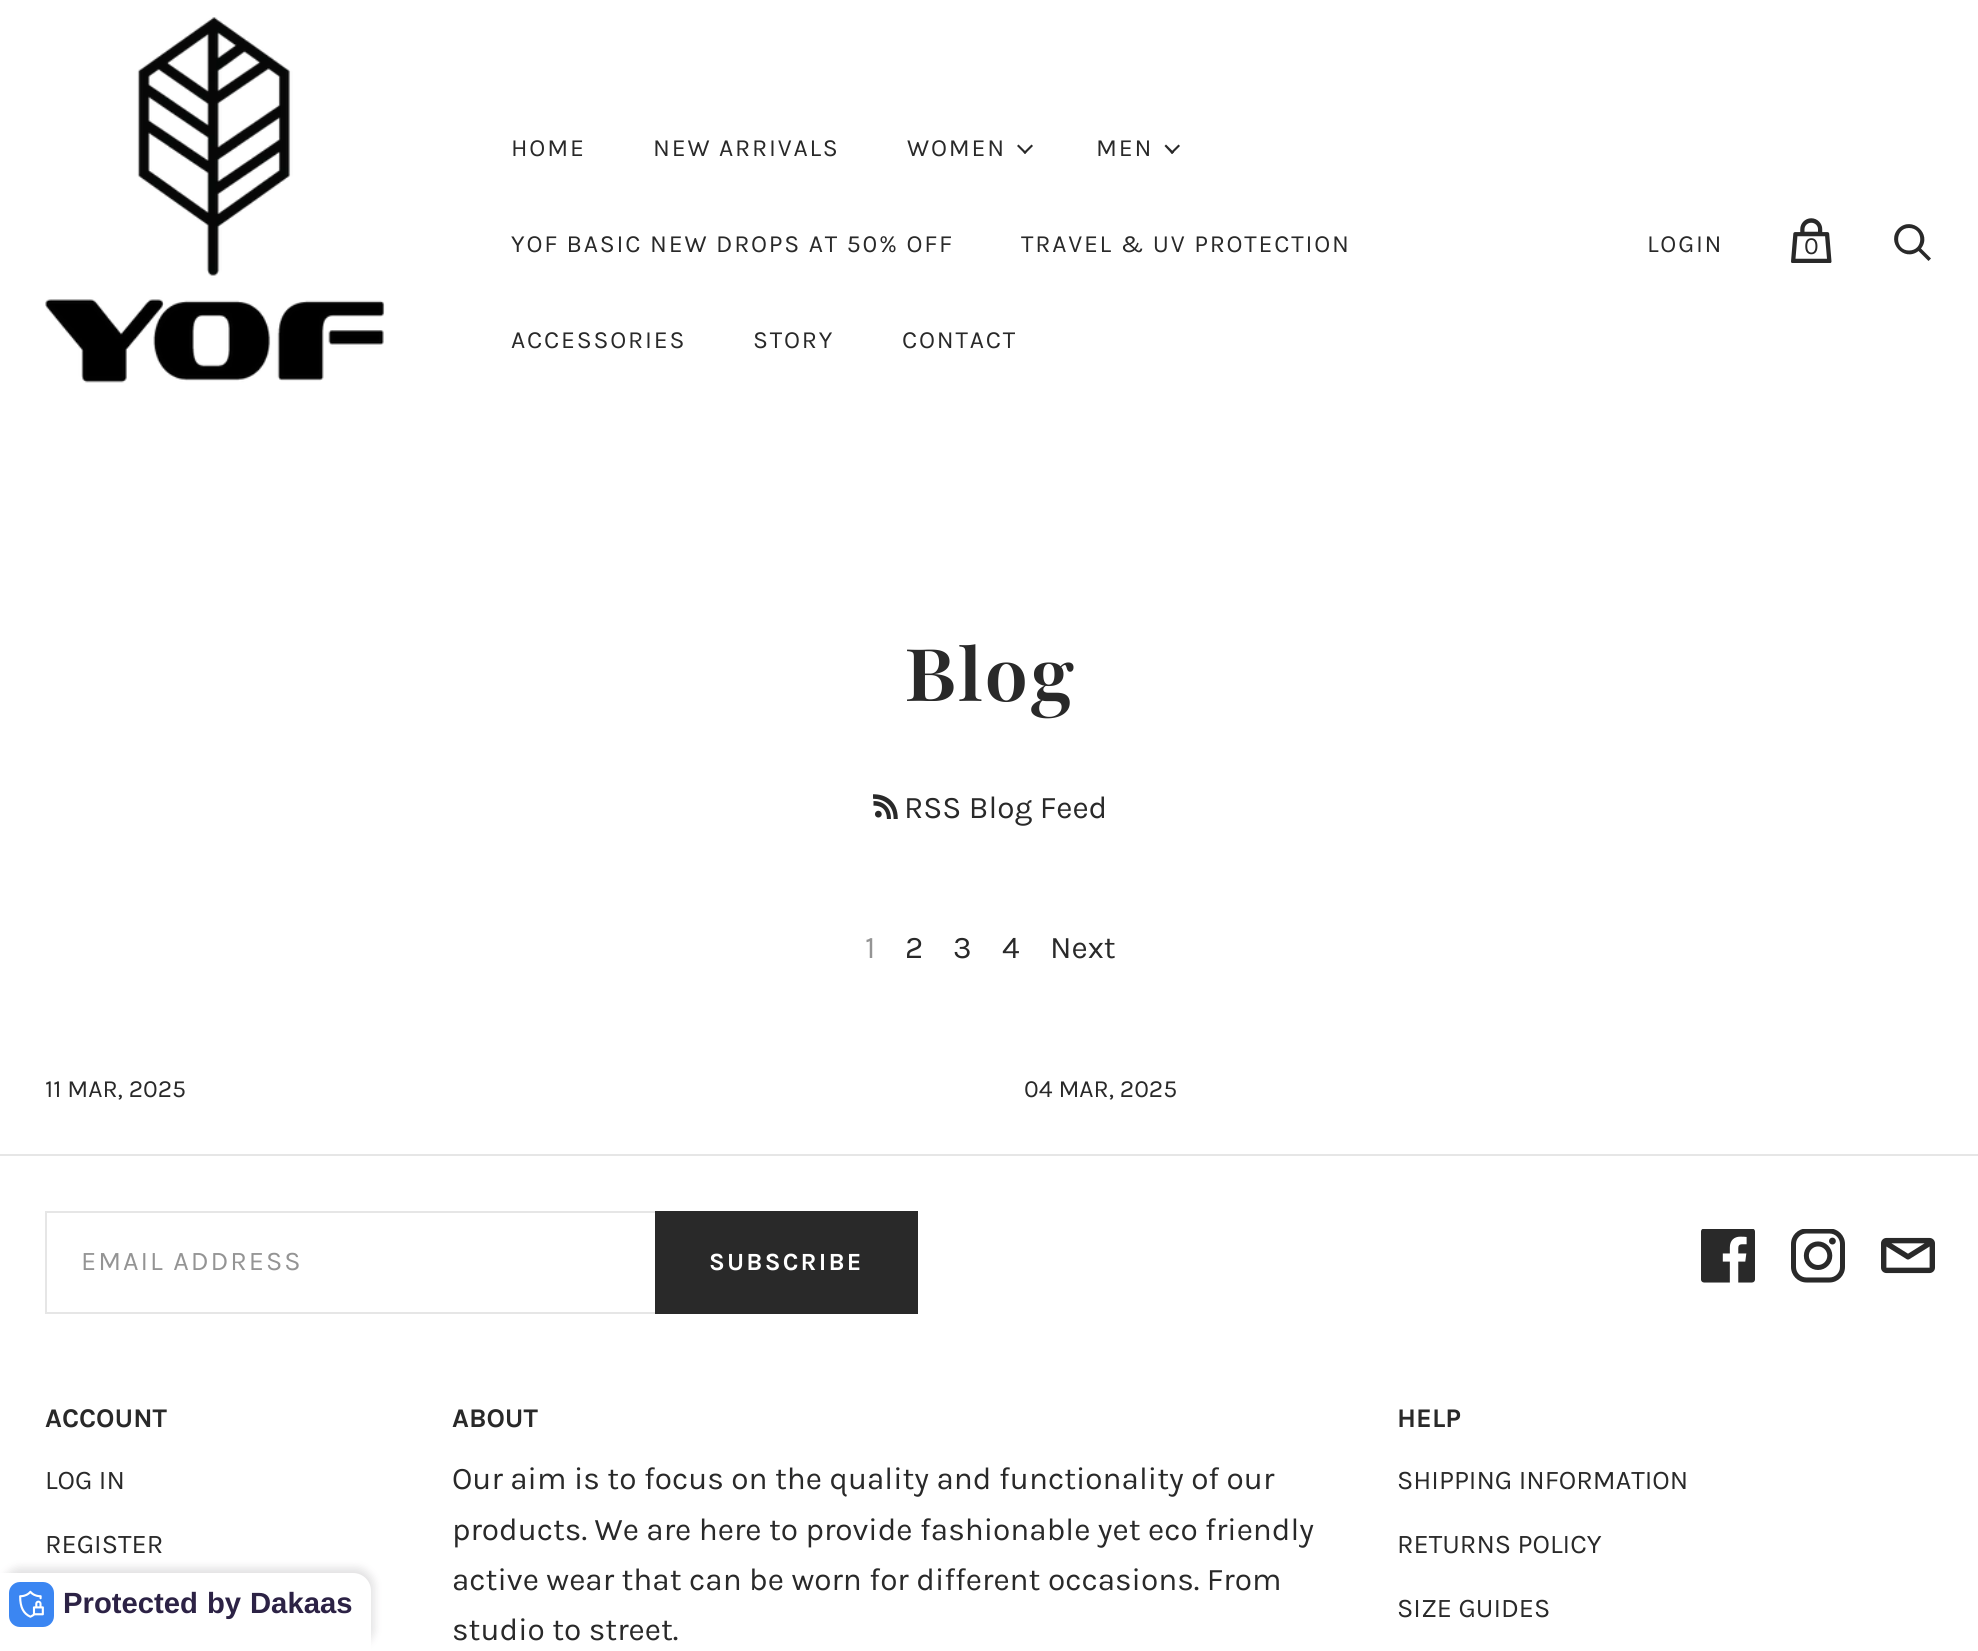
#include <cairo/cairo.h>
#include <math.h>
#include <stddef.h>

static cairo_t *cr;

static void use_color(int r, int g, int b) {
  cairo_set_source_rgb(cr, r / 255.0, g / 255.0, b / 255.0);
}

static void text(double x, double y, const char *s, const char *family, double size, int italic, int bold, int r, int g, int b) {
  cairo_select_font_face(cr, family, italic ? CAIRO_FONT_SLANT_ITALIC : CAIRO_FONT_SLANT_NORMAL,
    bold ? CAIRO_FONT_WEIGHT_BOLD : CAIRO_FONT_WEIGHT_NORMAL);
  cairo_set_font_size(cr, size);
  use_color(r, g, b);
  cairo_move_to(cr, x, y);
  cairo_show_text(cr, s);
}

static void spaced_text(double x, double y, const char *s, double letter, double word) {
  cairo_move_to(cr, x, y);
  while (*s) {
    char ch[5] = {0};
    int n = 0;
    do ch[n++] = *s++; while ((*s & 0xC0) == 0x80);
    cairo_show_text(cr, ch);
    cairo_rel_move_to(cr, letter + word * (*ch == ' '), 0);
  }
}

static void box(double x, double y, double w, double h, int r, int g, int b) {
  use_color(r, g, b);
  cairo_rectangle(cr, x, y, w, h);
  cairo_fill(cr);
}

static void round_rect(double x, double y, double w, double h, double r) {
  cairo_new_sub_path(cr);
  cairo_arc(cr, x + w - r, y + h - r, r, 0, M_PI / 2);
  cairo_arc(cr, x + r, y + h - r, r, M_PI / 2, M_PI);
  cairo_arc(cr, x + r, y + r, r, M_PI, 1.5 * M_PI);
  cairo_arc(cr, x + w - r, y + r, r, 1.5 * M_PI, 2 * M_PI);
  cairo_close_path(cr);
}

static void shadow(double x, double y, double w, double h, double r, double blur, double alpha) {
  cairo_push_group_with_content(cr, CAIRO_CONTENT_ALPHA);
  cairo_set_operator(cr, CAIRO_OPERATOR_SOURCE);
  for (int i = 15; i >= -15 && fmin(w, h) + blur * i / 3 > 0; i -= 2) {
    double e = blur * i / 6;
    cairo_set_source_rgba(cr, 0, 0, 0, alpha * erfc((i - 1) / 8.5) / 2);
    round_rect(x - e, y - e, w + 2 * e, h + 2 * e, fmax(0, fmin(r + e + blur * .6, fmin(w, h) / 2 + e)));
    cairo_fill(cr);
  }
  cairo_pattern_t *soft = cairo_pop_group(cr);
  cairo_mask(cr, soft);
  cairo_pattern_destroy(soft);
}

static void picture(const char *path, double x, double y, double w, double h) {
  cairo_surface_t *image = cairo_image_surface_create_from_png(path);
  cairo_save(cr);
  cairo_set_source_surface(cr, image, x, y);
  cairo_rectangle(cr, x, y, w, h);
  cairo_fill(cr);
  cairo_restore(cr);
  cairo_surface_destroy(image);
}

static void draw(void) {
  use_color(255, 255, 255);
  cairo_paint(cr);
  picture("img_01.png", 45, 17, 340, 366);
  use_color(41, 41, 41);
  cairo_new_path(cr);
  cairo_move_to(cr, 1023.5, 152.5);
  cairo_line_to(cr, 1031.5, 144.5);
  cairo_line_to(cr, 1033, 146);
  cairo_line_to(cr, 1025, 154);
  cairo_close_path(cr);
  cairo_fill(cr);
  cairo_new_path(cr);
  cairo_move_to(cr, 1017, 146);
  cairo_line_to(cr, 1018.5, 144.5);
  cairo_line_to(cr, 1026.5, 152.5);
  cairo_line_to(cr, 1025, 154);
  cairo_close_path(cr);
  cairo_fill(cr);
  cairo_new_path(cr);
  cairo_move_to(cr, 1170.5, 152.5);
  cairo_line_to(cr, 1178.5, 144.5);
  cairo_line_to(cr, 1180, 146);
  cairo_line_to(cr, 1172, 154);
  cairo_close_path(cr);
  cairo_fill(cr);
  cairo_new_path(cr);
  cairo_move_to(cr, 1164.5, 146);
  cairo_line_to(cr, 1166, 144.5);
  cairo_line_to(cr, 1174, 152.5);
  cairo_line_to(cr, 1172, 154);
  cairo_close_path(cr);
  cairo_fill(cr);
  picture("img_02.png", 1791, 218, 41, 45);
  cairo_new_path(cr);
  cairo_move_to(cr, 1931, 258.5);
  cairo_line_to(cr, 1921, 248.5);
  cairo_curve_to(cr, 1932.5, 234, 1912, 215.5, 1898.5, 228.5);
  cairo_curve_to(cr, 1885.5, 242, 1904, 262.5, 1918.5, 251);
  cairo_line_to(cr, 1928.5, 261);
  cairo_close_path(cr);
  cairo_move_to(cr, 1909, 250.5);
  cairo_curve_to(cr, 1894.5, 250.5, 1894.5, 228, 1909, 228);
  cairo_curve_to(cr, 1924, 228, 1924, 250.5, 1909, 250.5);
  cairo_close_path(cr);
  cairo_fill(cr);
  picture("img_03.png", 873, 794, 25, 25);
  box(0, 1154, 1978, 2, 230, 230, 230);
  box(45, 1211, 610, 2, 230, 230, 230);
  box(45, 1312, 610, 2, 230, 230, 230);
  box(45, 1211, 2, 103, 230, 230, 230);
  box(655, 1211, 263, 103, 41, 41, 41);
  picture("img_04.png", 1701, 1229, 54, 54);
  picture("img_05.png", 1791, 1229, 54, 54);
  picture("img_06.png", 1881, 1237, 54, 37);
  use_color(64, 60, 67);
  shadow(2, 1568, 372, 79, 18, 4.5, 0.16);
  use_color(255, 255, 255);
  cairo_new_path(cr);
  cairo_move_to(cr, 0, 1573);
  cairo_line_to(cr, 353, 1573);
  cairo_curve_to(cr, 363, 1573, 371, 1581, 371, 1591);
  cairo_line_to(cr, 371, 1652);
  cairo_line_to(cr, 0, 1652);
  cairo_close_path(cr);
  cairo_fill(cr);
  use_color(59, 134, 242);
  round_rect(9, 1582, 45, 45, 11);
  cairo_fill(cr);
  picture("img_07.png", 19, 1590, 25, 28);
  cairo_select_font_face(cr, "Karla", CAIRO_FONT_SLANT_NORMAL, CAIRO_FONT_WEIGHT_NORMAL);
  cairo_set_font_size(cr, 24.75);
  use_color(41, 41, 41);
  spaced_text(511, 156, "HOME", 1.8, 0);
  spaced_text(653, 156, "NEW ARRIVALS", 1.8, 0);
  spaced_text(907, 156, "WOMEN", 1.8, 0);
  spaced_text(1096, 156, "MEN", 1.8, 0);
  spaced_text(511, 252, "YOF BASIC NEW DROPS AT 50% OFF", 1.8, 0);
  spaced_text(1021, 252, "TRAVEL & UV PROTECTION", 1.8, 0);
  spaced_text(511, 348, "ACCESSORIES", 1.8, 0);
  spaced_text(753, 348, "STORY", 1.8, 0);
  spaced_text(902, 348, "CONTACT", 1.8, 0);
  spaced_text(1647, 252, "LOGIN", 1.8, 0);
  text(1804, 254, "0", "Karla", 24.75, 0, 0, 41, 41, 41);
  cairo_select_font_face(cr, "Playfair", CAIRO_FONT_SLANT_NORMAL, CAIRO_FONT_WEIGHT_BOLD);
  cairo_set_font_size(cr, 90);
  spaced_text(904, 701, "Blog", 1, 0);
  text(904, 818, "RSS Blog Feed", "Karla", 31.5, 0, 0, 41, 41, 41);
  text(865, 958, "1", "Karla", 31.5, 0, 0, 148, 148, 148);
  text(905, 958, "2", "Karla", 31.5, 0, 0, 41, 41, 41);
  text(953, 958, "3", "Karla", 31.5, 0, 0, 41, 41, 41);
  text(1002, 958, "4", "Karla", 31.5, 0, 0, 41, 41, 41);
  text(1050, 958, "Next", "Karla", 31.5, 0, 0, 41, 41, 41);
  text(45, 1097, "11 MAR, 2025", "Karla", 24.75, 0, 0, 41, 41, 41);
  text(1024, 1097, "04 MAR, 2025", "Karla", 24.75, 0, 0, 41, 41, 41);
  cairo_set_font_size(cr, 27);
  use_color(148, 148, 148);
  spaced_text(81, 1270, "EMAIL ADDRESS", 2, 0);
  cairo_select_font_face(cr, "Karla", CAIRO_FONT_SLANT_NORMAL, CAIRO_FONT_WEIGHT_BOLD);
  cairo_set_font_size(cr, 24.75);
  use_color(255, 255, 255);
  spaced_text(709, 1270, "SUBSCRIBE", 2.25, 0);
  text(45, 1427, "ACCOUNT", "Karla", 27, 0, 1, 41, 41, 41);
  text(45, 1489, "LOG IN", "Karla", 27, 0, 0, 41, 41, 41);
  text(45, 1553, "REGISTER", "Karla", 27, 0, 0, 41, 41, 41);
  text(452, 1427, "ABOUT", "Karla", 27, 0, 1, 41, 41, 41);
  text(452, 1489, "Our aim is to focus on the quality and functionality of our", "Karla", 31.5, 0, 0, 41, 41, 41);
  text(452, 1540, "products. We are here to provide fashionable yet eco friendly", "Karla", 31.5, 0, 0, 41, 41, 41);
  text(452, 1590, "active wear that can be worn for different occasions. From", "Karla", 31.5, 0, 0, 41, 41, 41);
  text(452, 1640, "studio to street.", "Karla", 31.5, 0, 0, 41, 41, 41);
  text(1397, 1427, "HELP", "Karla", 27, 0, 1, 41, 41, 41);
  text(1397, 1489, "SHIPPING INFORMATION", "Karla", 27, 0, 0, 41, 41, 41);
  text(1397, 1553, "RETURNS POLICY", "Karla", 27, 0, 0, 41, 41, 41);
  text(1397, 1617, "SIZE GUIDES", "Karla", 27, 0, 0, 41, 41, 41);
  text(63, 1613, "Protected", "Liberation Sans", 29.25, 0, 1, 44, 34, 69);
  text(207, 1613, "by", "Liberation Sans", 29.25, 0, 1, 44, 34, 69);
  text(250, 1613, "Dakaas", "Liberation Sans", 29.25, 0, 1, 44, 34, 69);
}

int main(void) {
  cairo_surface_t *surface = cairo_image_surface_create(CAIRO_FORMAT_RGB24, 1978, 1651);
  cr = cairo_create(surface);
  cairo_font_options_t *options = cairo_font_options_create();
  cairo_font_options_set_hint_metrics(options, CAIRO_HINT_METRICS_OFF);
  cairo_font_options_set_hint_style(options, CAIRO_HINT_STYLE_NONE);
  cairo_set_font_options(cr, options);
  cairo_set_miter_limit(cr, 4);
  draw();
  cairo_surface_write_to_png(surface, "out.png");
  cairo_font_options_destroy(options);
  cairo_destroy(cr);
  cairo_surface_destroy(surface);
  return 0;
}
